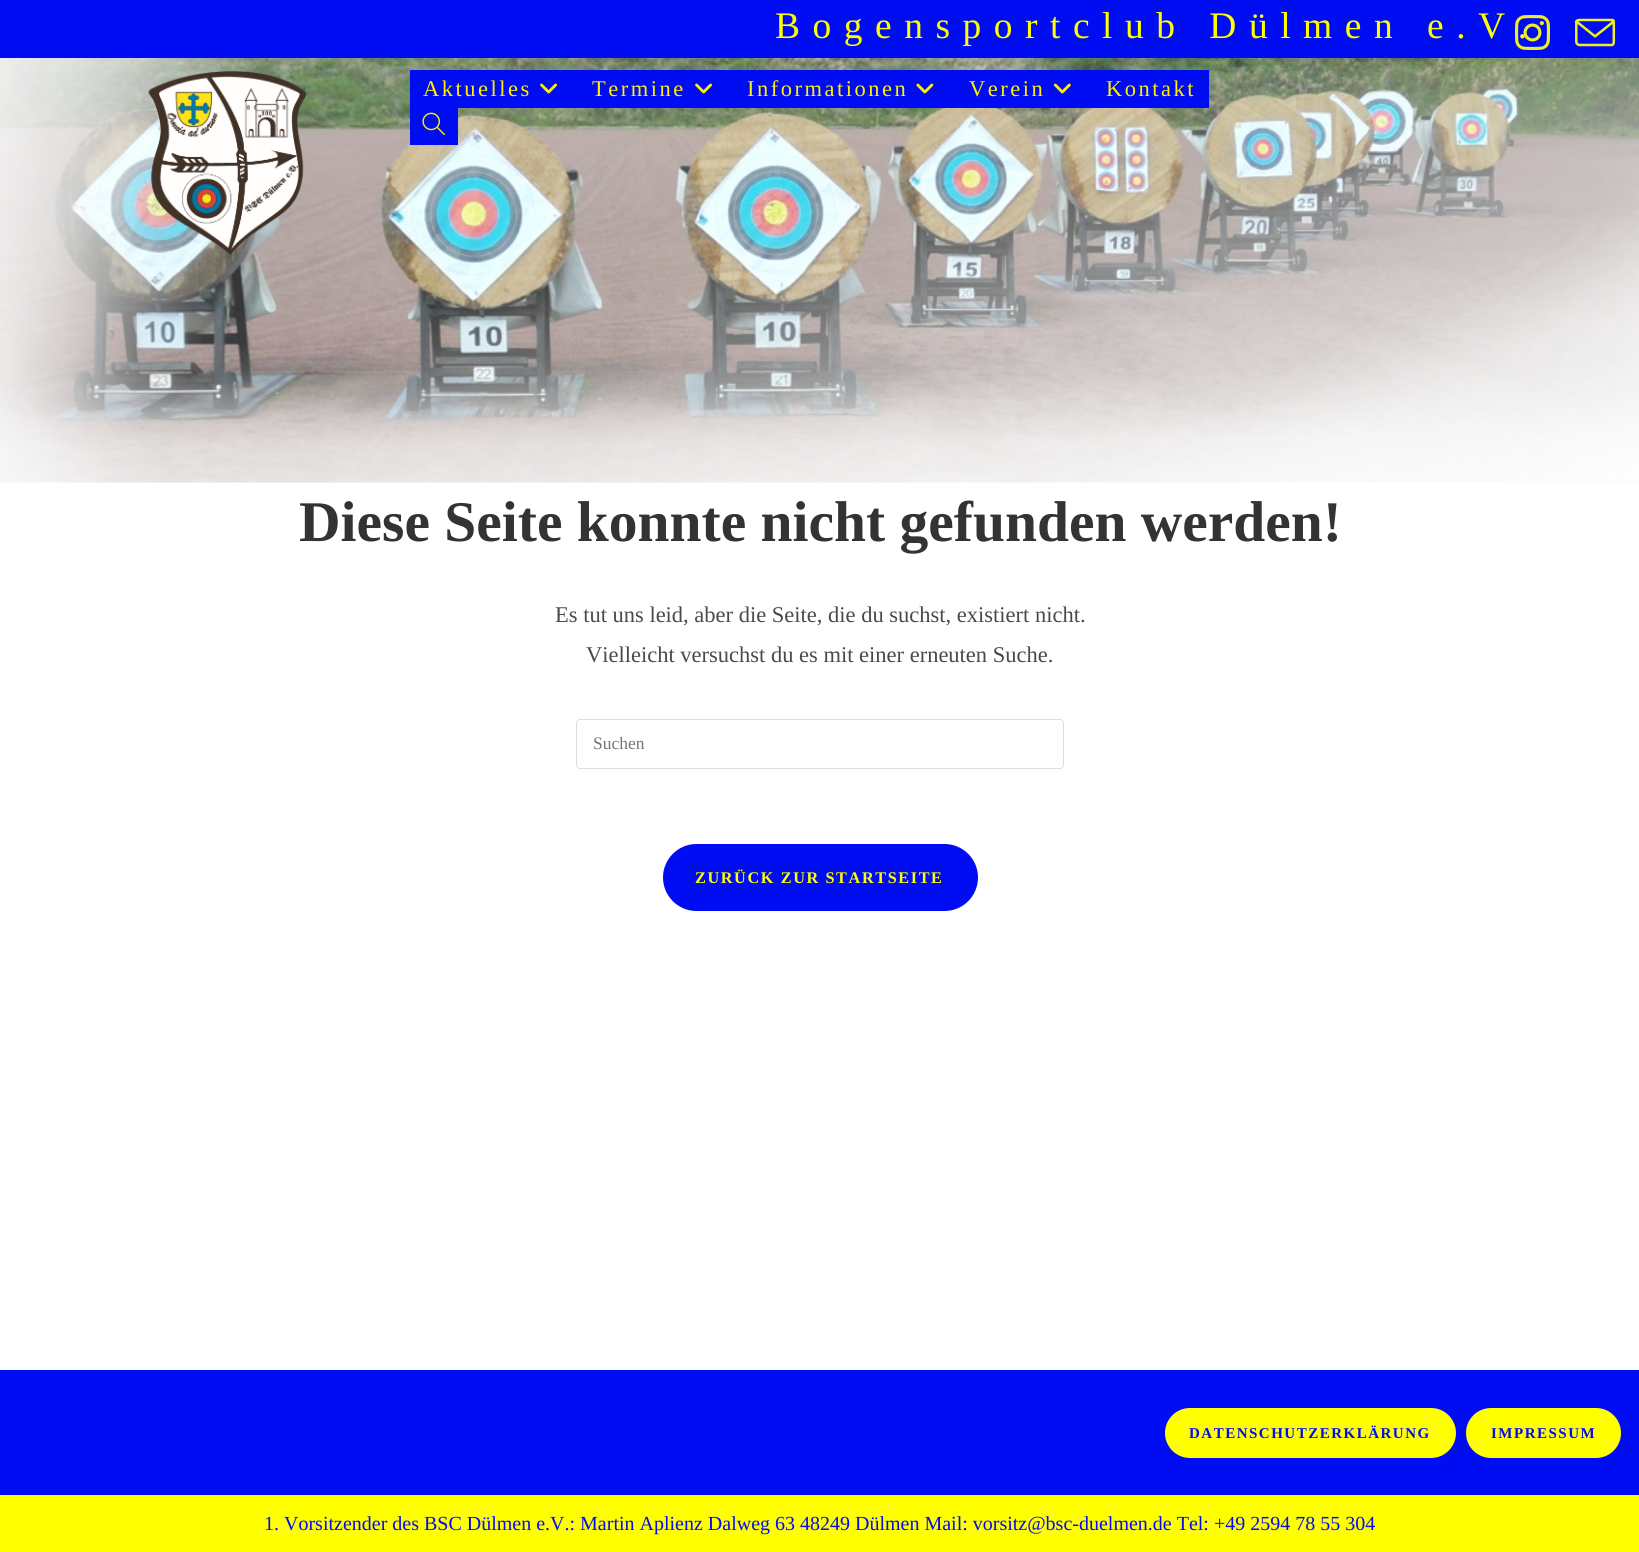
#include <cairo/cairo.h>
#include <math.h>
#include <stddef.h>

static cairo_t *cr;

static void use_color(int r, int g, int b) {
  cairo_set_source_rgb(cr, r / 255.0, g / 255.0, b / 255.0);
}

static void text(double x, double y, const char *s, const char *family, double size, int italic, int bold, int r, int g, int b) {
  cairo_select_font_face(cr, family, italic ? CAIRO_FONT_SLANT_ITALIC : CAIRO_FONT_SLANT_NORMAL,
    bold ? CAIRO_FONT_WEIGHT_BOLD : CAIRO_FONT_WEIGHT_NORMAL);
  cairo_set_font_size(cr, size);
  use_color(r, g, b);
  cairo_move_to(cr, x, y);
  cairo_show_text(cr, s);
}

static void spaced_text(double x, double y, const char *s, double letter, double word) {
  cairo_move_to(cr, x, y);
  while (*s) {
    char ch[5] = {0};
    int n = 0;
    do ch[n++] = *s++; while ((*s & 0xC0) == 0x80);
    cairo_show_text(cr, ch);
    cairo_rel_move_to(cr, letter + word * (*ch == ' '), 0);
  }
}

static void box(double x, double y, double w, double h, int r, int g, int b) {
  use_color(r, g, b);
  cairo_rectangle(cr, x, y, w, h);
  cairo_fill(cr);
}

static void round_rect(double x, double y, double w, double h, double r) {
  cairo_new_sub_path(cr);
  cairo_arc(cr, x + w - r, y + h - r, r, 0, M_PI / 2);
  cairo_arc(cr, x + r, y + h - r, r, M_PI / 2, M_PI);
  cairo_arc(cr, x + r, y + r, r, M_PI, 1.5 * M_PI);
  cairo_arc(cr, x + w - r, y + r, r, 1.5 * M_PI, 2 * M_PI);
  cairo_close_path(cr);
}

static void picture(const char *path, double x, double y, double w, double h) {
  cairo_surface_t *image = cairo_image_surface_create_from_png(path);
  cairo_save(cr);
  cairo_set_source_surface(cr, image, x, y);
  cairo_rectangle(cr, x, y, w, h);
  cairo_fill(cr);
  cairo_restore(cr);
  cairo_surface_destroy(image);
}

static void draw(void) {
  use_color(255, 255, 255);
  cairo_paint(cr);
  box(0, 0, 1639, 58, 0, 12, 242);
  picture("img_02.png", 1575, 18, 41, 29);
  picture("img_03.png", 0, 58, 1639, 425);
  picture("img_04.png", 148, 71, 159, 184);
  box(410, 70, 799, 38, 0, 12, 242);
  picture("img_05.png", 540, 83, 17, 11);
  picture("img_05.png", 695, 83, 17, 11);
  picture("img_06.png", 916, 83, 18, 11);
  picture("img_07.png", 1053, 83, 18, 11);
  box(410, 108, 48, 37, 0, 12, 242);
  picture("img_08.png", 422, 112, 23, 24);
  round_rect(576.5, 719.5, 487, 49, 3.5);
  use_color(221, 221, 221);
  cairo_set_line_width(cr, 1);
  cairo_stroke(cr);
  use_color(0, 12, 242);
  round_rect(663, 844, 315, 67, 33.5);
  cairo_fill(cr);
  box(0, 1370, 1639, 125, 0, 12, 242);
  use_color(255, 255, 0);
  round_rect(1165, 1408, 291, 50, 25);
  cairo_fill(cr);
  round_rect(1466, 1408, 155, 50, 25);
  cairo_fill(cr);
  box(0, 1495, 1639, 57, 255, 255, 0);
  cairo_select_font_face(cr, "Liberation Serif", CAIRO_FONT_SLANT_NORMAL, CAIRO_FONT_WEIGHT_NORMAL);
  cairo_set_font_size(cr, 37.5);
  spaced_text(775, 38, "Bogensportclub Dülmen e.V.", 12.5, 0);
  picture("img_01.png", 1515, 15, 35, 35);
  cairo_set_font_size(cr, 22.5);
  use_color(255, 240, 0);
  spaced_text(423, 96, "Aktuelles", 2.5, 0);
  spaced_text(592, 96, "Termine", 2.5, 0);
  spaced_text(747, 96, "Informationen", 2.5, 0);
  spaced_text(969, 96, "Verein", 2.5, 0);
  spaced_text(1106, 96, "Kontakt", 2.5, 0);
  text(299, 541, "Diese Seite konnte nicht gefunden werden!", "Liberation Serif", 57.5, 0, 1, 51, 51, 51);
  text(555, 622, "Es tut uns leid, aber die Seite, die du suchst, existiert nicht.", "Liberation Serif", 22.5, 0, 0, 74, 74, 74);
  text(586, 662, "Vielleicht versuchst du es mit einer erneuten Suche.", "Liberation Serif", 22.5, 0, 0, 74, 74, 74);
  text(593, 749, "Suchen", "Liberation Serif", 17.5, 0, 0, 117, 117, 117);
  cairo_select_font_face(cr, "Liberation Serif", CAIRO_FONT_SLANT_NORMAL, CAIRO_FONT_WEIGHT_BOLD);
  cairo_set_font_size(cr, 16.25);
  use_color(255, 255, 0);
  spaced_text(695, 883, "ZURÜCK ZUR STARTSEITE", 1.6, 0);
  cairo_set_font_size(cr, 15);
  use_color(0, 12, 242);
  spaced_text(1189, 1438, "DATENSCHUTZERKLÄRUNG", 1.5, 0);
  spaced_text(1491, 1438, "IMPRESSUM", 1.5, 0);
  text(264, 1530, "1. Vorsitzender des BSC Dülmen e.V.: Martin Aplienz Dalweg 63 48249 Dülmen Mail: vorsitz@bsc-duelmen.de Tel: +49 2594 78 55 304", "Liberation Serif", 20, 0, 0, 0, 12, 242);
}

int main(void) {
  cairo_surface_t *surface = cairo_image_surface_create(CAIRO_FORMAT_RGB24, 1639, 1552);
  cr = cairo_create(surface);
  cairo_font_options_t *options = cairo_font_options_create();
  cairo_font_options_set_hint_metrics(options, CAIRO_HINT_METRICS_OFF);
  cairo_font_options_set_hint_style(options, CAIRO_HINT_STYLE_NONE);
  cairo_set_font_options(cr, options);
  cairo_set_miter_limit(cr, 4);
  draw();
  cairo_surface_write_to_png(surface, "out.png");
  cairo_font_options_destroy(options);
  cairo_destroy(cr);
  cairo_surface_destroy(surface);
  return 0;
}
